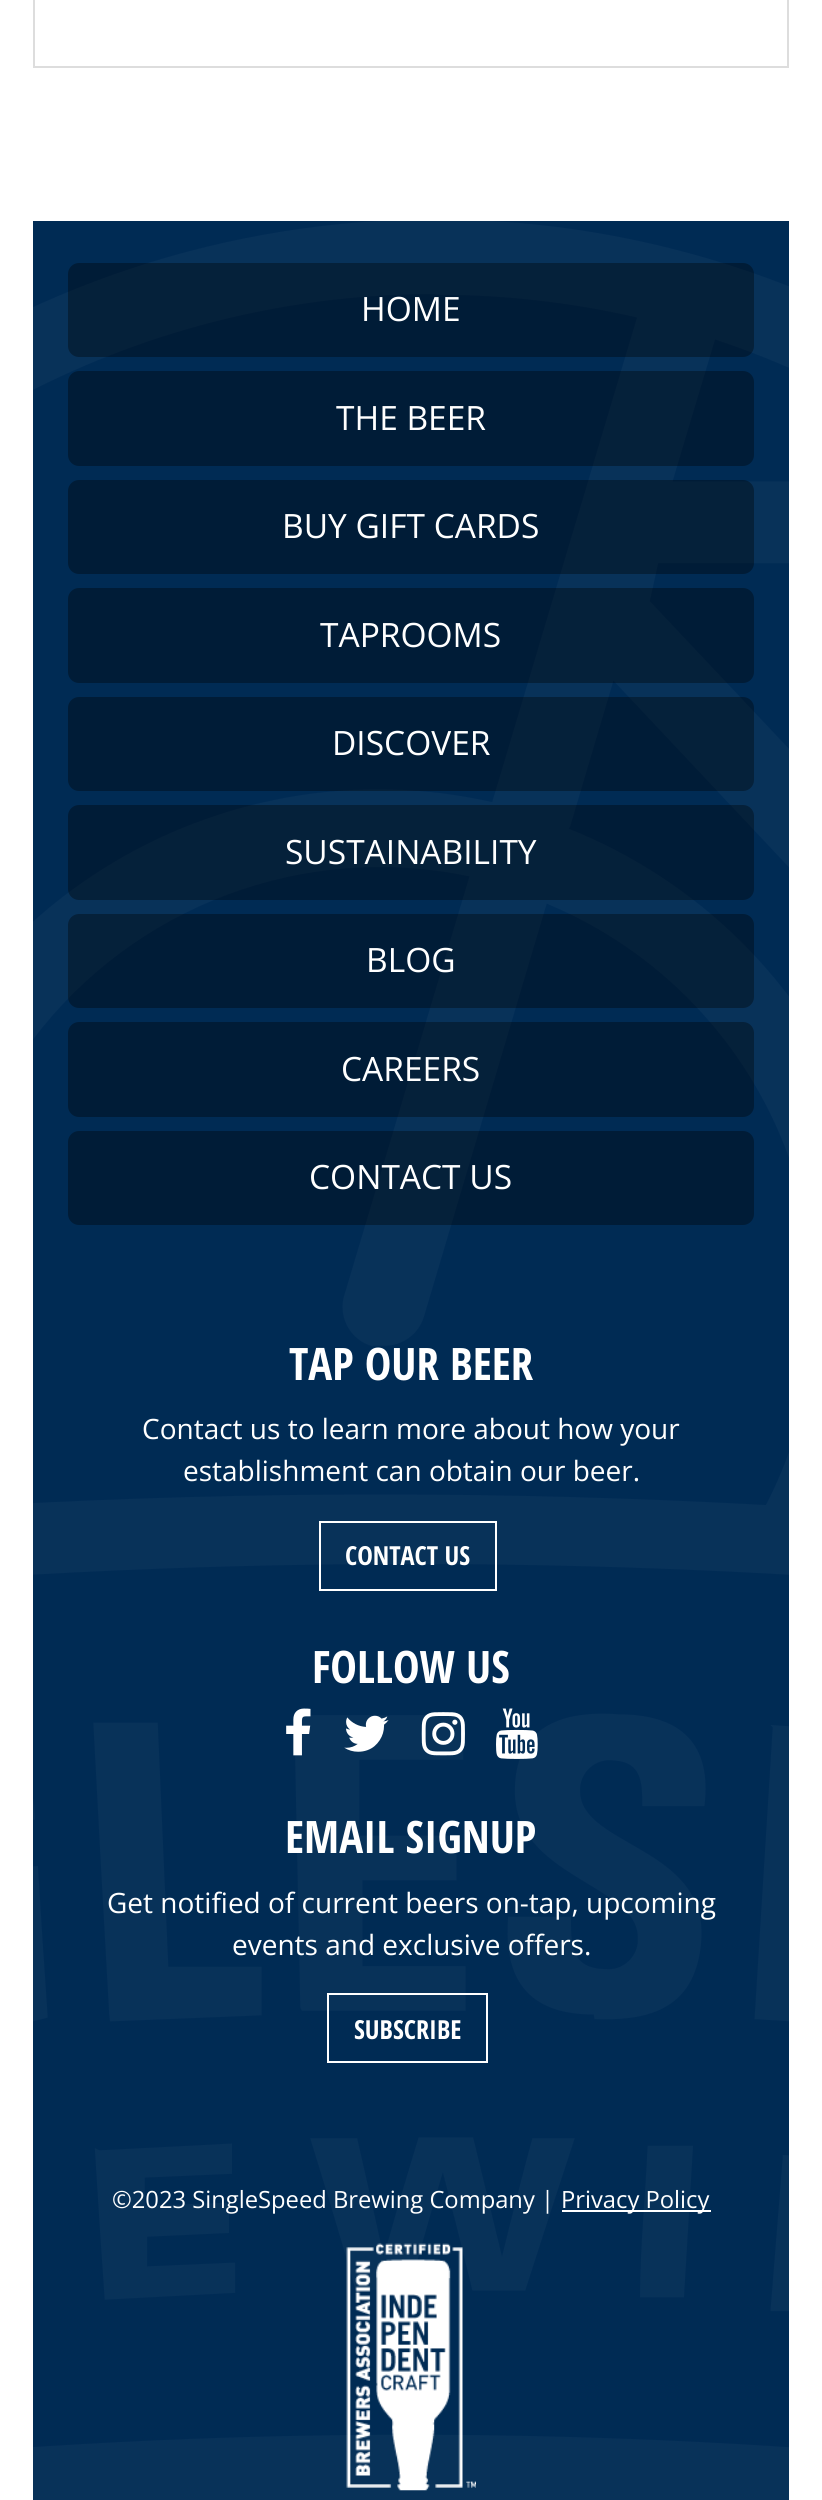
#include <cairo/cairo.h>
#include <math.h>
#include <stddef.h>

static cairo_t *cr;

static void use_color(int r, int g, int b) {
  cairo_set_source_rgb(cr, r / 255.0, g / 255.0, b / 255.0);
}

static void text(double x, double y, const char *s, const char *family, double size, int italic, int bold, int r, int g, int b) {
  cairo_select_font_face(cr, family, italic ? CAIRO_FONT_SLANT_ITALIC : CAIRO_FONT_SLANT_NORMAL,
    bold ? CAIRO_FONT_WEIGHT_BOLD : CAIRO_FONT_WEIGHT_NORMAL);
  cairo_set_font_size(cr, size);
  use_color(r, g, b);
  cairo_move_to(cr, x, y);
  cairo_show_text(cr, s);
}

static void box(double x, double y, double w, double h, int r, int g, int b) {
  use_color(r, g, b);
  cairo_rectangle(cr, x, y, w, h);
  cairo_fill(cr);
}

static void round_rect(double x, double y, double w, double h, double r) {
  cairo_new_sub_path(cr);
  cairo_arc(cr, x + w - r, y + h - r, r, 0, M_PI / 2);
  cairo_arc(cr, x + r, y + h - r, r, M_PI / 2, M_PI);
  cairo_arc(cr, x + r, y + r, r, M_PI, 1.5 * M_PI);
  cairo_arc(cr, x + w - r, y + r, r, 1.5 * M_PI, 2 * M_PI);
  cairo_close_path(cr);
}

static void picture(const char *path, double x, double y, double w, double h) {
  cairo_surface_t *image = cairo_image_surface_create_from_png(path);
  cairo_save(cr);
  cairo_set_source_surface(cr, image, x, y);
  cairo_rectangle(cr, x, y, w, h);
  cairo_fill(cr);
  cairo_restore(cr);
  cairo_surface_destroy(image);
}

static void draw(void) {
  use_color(255, 255, 255);
  cairo_paint(cr);
  cairo_rectangle(cr, 34, -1, 754, 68);
  use_color(221, 221, 221);
  cairo_stroke(cr);
  box(33, 221, 756, 2279, 0, 43, 84);
  picture("img_01.png", 33, 221, 756, 2279);
  cairo_set_source_rgba(cr, 0, 0, 0, 0.35);
  round_rect(68, 263, 686, 94, 11);
  cairo_fill(cr);
  round_rect(68, 371, 686, 95, 11);
  cairo_fill(cr);
  round_rect(68, 480, 686, 94, 11);
  cairo_fill(cr);
  round_rect(68, 588, 686, 95, 11);
  cairo_fill(cr);
  round_rect(68, 697, 686, 94, 11);
  cairo_fill(cr);
  round_rect(68, 805, 686, 95, 11);
  cairo_fill(cr);
  round_rect(68, 914, 686, 94, 11);
  cairo_fill(cr);
  round_rect(68, 1022, 686, 95, 11);
  cairo_fill(cr);
  round_rect(68, 1131, 686, 94, 11);
  cairo_fill(cr);
  cairo_rectangle(cr, 320, 1522, 176, 68);
  use_color(255, 255, 255);
  cairo_stroke(cr);
  picture("img_02.png", 286, 1708, 25, 48);
  picture("img_03.png", 344, 1715, 45, 37);
  picture("img_04.png", 421, 1712, 44, 44);
  picture("img_05.png", 496, 1708, 42, 51);
  cairo_rectangle(cr, 328, 1994, 159, 68);
  cairo_stroke(cr);
  box(562, 2210, 149, 2, 255, 255, 255);
  picture("img_06.png", 346, 2243, 130, 248);
  text(361, 321, "HOME", "Open Sans", 33.5, 0, 0, 255, 255, 255);
  text(336, 430, "THE BEER", "Open Sans", 33.5, 0, 0, 255, 255, 255);
  text(282, 538, "BUY GIFT CARDS", "Open Sans", 33.5, 0, 0, 255, 255, 255);
  text(320, 647, "TAPROOMS", "Open Sans", 33.5, 0, 0, 255, 255, 255);
  text(332, 755, "DISCOVER", "Open Sans", 33.5, 0, 0, 255, 255, 255);
  text(285, 864, "SUSTAINABILITY", "Open Sans", 33.5, 0, 0, 255, 255, 255);
  text(366, 972, "BLOG", "Open Sans", 33.5, 0, 0, 255, 255, 255);
  text(341, 1081, "CAREERS", "Open Sans", 33.5, 0, 0, 255, 255, 255);
  text(309, 1189, "CONTACT US", "Open Sans", 33.5, 0, 0, 255, 255, 255);
  text(289, 1380, "TAP OUR BEER", "Open Sans Condensed", 44.75, 0, 1, 255, 255, 255);
  text(142, 1439, "Contact us to learn more about how your", "Open Sans", 28, 0, 0, 255, 255, 255);
  text(183, 1481, "establishment can obtain our beer.", "Open Sans", 28, 0, 0, 255, 255, 255);
  text(345, 1565, "CONTACT US", "Open Sans Condensed", 26.25, 0, 1, 255, 255, 255);
  text(312, 1683, "FOLLOW US", "Open Sans Condensed", 44.75, 0, 1, 255, 255, 255);
  text(285, 1853, "EMAIL SIGNUP", "Open Sans Condensed", 44.75, 0, 1, 255, 255, 255);
  text(107, 1913, "Get notified of current beers on-tap, upcoming", "Open Sans", 28, 0, 0, 255, 255, 255);
  text(232, 1955, "events and exclusive offers.", "Open Sans", 28, 0, 0, 255, 255, 255);
  text(354, 2039, "SUBSCRIBE", "Open Sans Condensed", 26.25, 0, 1, 255, 255, 255);
  text(112, 2208, "©2023 SingleSpeed Brewing Company |", "Open Sans", 23.75, 0, 0, 255, 255, 255);
  text(561, 2208, "Privacy Policy", "Open Sans", 23.75, 0, 0, 255, 255, 255);
}

int main(void) {
  cairo_surface_t *surface = cairo_image_surface_create(CAIRO_FORMAT_RGB24, 822, 2500);
  cr = cairo_create(surface);
  cairo_font_options_t *options = cairo_font_options_create();
  cairo_font_options_set_hint_metrics(options, CAIRO_HINT_METRICS_OFF);
  cairo_font_options_set_hint_style(options, CAIRO_HINT_STYLE_NONE);
  cairo_set_font_options(cr, options);
  cairo_set_miter_limit(cr, 4);
  draw();
  cairo_surface_write_to_png(surface, "out.png");
  cairo_font_options_destroy(options);
  cairo_destroy(cr);
  cairo_surface_destroy(surface);
  return 0;
}
